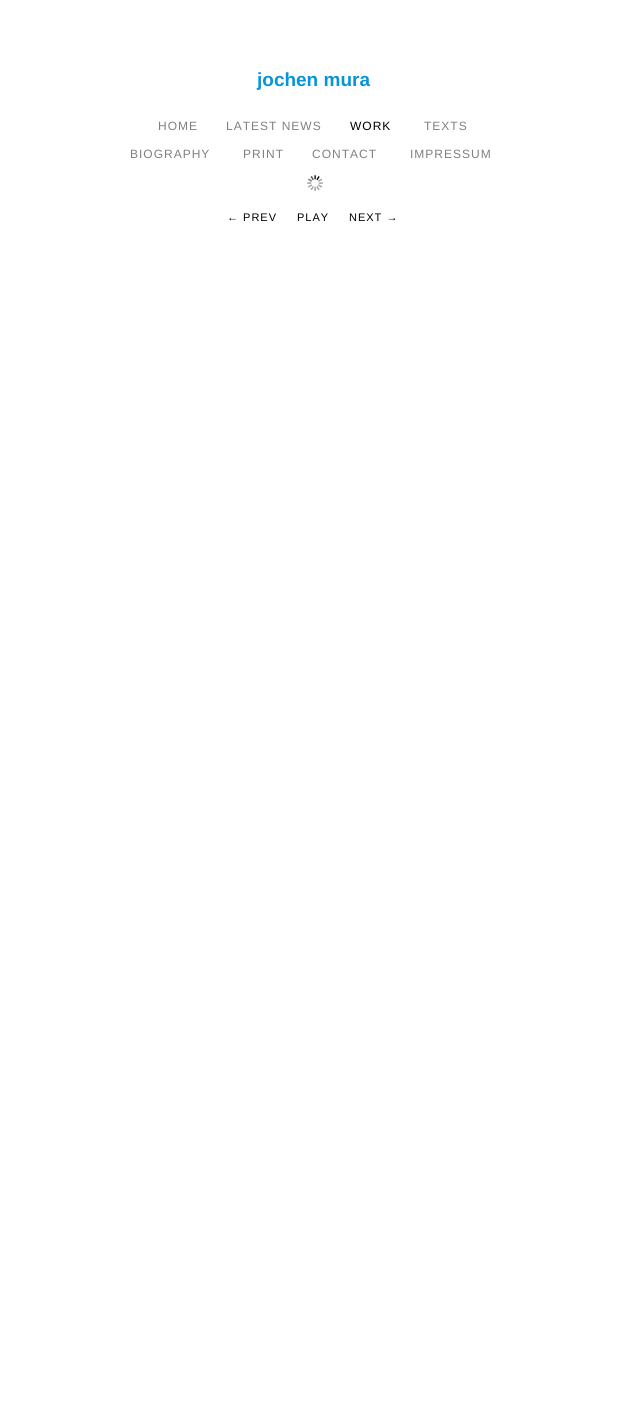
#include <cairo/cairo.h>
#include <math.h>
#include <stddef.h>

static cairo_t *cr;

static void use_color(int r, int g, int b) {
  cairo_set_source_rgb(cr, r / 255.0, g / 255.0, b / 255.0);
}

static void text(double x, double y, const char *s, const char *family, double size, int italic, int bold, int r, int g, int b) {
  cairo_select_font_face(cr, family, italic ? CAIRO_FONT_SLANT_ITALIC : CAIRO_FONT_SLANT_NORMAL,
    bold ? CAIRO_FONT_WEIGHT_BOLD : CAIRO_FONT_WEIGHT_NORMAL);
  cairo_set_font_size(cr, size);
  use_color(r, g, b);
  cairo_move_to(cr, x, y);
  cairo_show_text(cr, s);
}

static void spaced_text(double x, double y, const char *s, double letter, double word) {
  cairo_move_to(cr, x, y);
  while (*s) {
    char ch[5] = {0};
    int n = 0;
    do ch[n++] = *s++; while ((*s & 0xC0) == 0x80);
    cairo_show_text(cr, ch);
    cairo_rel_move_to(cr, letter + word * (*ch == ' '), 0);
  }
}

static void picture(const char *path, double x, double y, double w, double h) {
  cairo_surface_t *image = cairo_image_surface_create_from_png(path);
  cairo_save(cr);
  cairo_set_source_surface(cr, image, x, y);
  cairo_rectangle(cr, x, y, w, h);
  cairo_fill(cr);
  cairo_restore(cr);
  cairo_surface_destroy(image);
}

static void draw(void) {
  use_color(255, 255, 255);
  cairo_paint(cr);
  picture("img_01.png", 307, 175, 16, 16);
  text(257, 86, "jochen mura", "Liberation Sans", 19, 0, 1, 7, 148, 218);
  cairo_select_font_face(cr, "Liberation Sans", CAIRO_FONT_SLANT_NORMAL, CAIRO_FONT_WEIGHT_NORMAL);
  cairo_set_font_size(cr, 12);
  use_color(128, 128, 128);
  spaced_text(158, 130, "HOME", 1, 0);
  spaced_text(226, 130, "LATEST NEWS", 1, 0);
  use_color(0, 0, 0);
  spaced_text(350, 130, "WORK", 1, 0);
  use_color(128, 128, 128);
  spaced_text(424, 130, "TEXTS", 1, 0);
  spaced_text(130, 158, "BIOGRAPHY", 1, 0);
  spaced_text(243, 158, "PRINT", 1, 0);
  spaced_text(312, 158, "CONTACT", 1, 0);
  spaced_text(410, 158, "IMPRESSUM", 1, 0);
  cairo_set_font_size(cr, 11);
  use_color(0, 0, 0);
  spaced_text(227, 221, "← PREV", 1, 0);
  spaced_text(297, 221, "PLAY", 1, 0);
  spaced_text(349, 221, "NEXT →", 1, 0);
}

int main(void) {
  cairo_surface_t *surface = cairo_image_surface_create(CAIRO_FORMAT_RGB24, 626, 1408);
  cr = cairo_create(surface);
  cairo_font_options_t *options = cairo_font_options_create();
  cairo_font_options_set_hint_metrics(options, CAIRO_HINT_METRICS_OFF);
  cairo_font_options_set_hint_style(options, CAIRO_HINT_STYLE_NONE);
  cairo_set_font_options(cr, options);
  cairo_set_miter_limit(cr, 4);
  draw();
  cairo_surface_write_to_png(surface, "out.png");
  cairo_font_options_destroy(options);
  cairo_destroy(cr);
  cairo_surface_destroy(surface);
  return 0;
}
